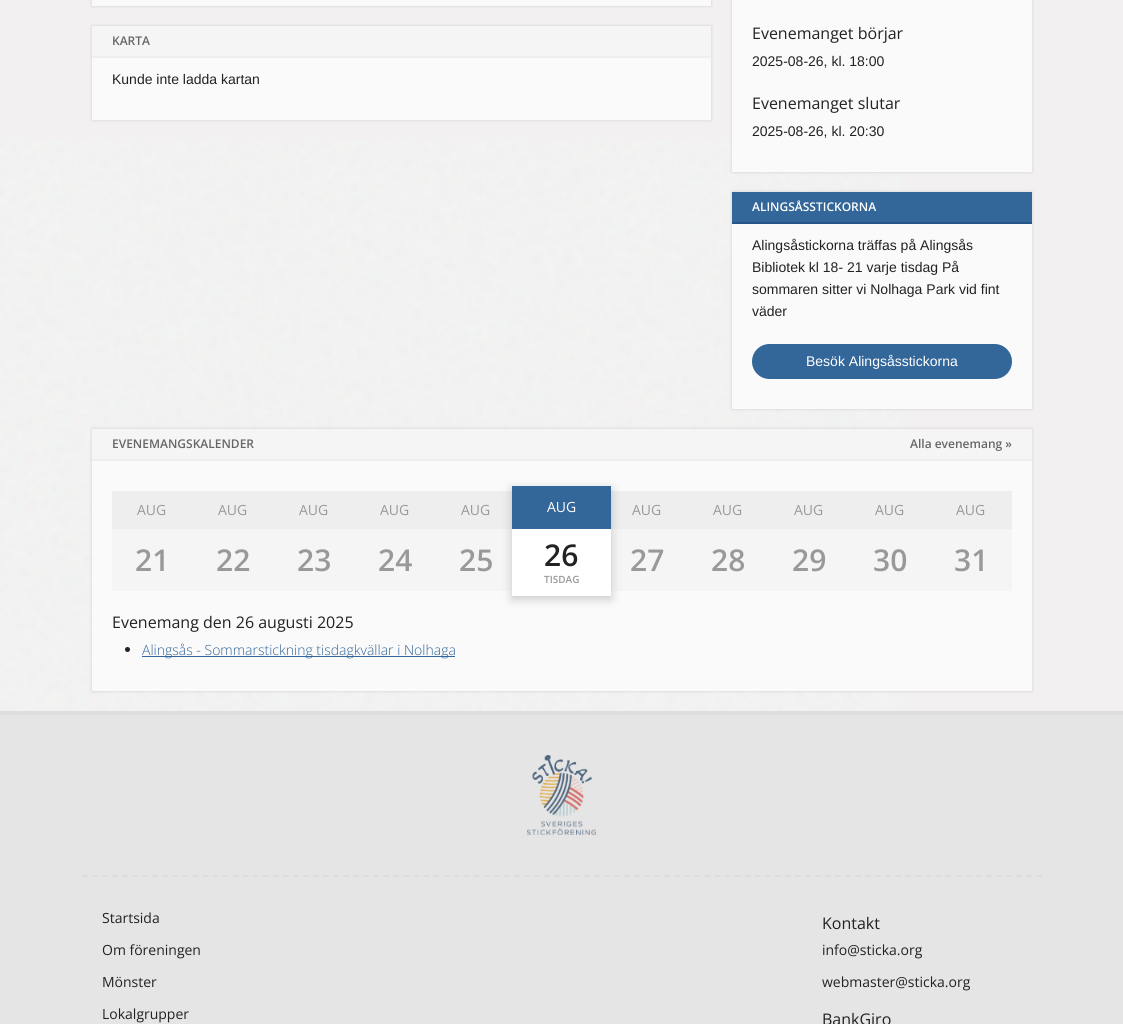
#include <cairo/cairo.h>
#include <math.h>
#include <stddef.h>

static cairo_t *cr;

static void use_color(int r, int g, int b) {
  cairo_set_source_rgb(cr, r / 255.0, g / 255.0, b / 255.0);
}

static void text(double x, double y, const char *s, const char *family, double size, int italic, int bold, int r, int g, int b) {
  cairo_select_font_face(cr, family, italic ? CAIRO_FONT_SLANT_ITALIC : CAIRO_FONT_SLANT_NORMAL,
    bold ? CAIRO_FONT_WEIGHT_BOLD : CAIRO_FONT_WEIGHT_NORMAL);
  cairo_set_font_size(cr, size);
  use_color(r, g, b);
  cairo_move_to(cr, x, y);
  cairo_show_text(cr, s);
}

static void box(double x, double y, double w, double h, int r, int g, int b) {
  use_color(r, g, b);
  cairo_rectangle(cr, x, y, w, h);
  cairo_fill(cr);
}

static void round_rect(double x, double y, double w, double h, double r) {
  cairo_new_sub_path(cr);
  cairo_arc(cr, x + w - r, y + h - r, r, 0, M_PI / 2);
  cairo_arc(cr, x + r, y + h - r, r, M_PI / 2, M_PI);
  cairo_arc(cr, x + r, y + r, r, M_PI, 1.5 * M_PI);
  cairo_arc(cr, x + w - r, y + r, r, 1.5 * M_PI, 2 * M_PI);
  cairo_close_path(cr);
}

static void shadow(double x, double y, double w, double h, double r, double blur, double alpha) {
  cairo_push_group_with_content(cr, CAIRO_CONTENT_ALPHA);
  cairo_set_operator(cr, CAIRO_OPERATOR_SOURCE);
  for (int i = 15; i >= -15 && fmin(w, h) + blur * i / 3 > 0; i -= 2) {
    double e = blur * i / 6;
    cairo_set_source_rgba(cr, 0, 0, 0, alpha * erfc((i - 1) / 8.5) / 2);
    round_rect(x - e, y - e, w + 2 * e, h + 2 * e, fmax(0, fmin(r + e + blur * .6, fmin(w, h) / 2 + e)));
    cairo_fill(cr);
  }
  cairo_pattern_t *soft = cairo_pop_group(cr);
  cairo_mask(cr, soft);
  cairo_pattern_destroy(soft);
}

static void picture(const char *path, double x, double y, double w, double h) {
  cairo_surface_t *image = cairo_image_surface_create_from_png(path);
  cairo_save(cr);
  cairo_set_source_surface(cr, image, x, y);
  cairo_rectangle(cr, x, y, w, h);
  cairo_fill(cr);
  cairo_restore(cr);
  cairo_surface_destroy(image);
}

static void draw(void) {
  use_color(243, 240, 241);
  cairo_paint(cr);
  picture("img_01.png", 0, 141, 901, 570);
  use_color(0, 0, 0);
  shadow(92, -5, 619, 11, 0, 1.5, 0.15);
  box(92, 0, 619, 6, 250, 250, 250);
  use_color(0, 0, 0);
  shadow(92, 26, 619, 94, 0, 1.5, 0.15);
  box(92, 58, 619, 62, 250, 250, 250);
  box(92, 26, 619, 30, 245, 245, 245);
  box(92, 56, 619, 2, 238, 238, 238);
  use_color(0, 0, 0);
  shadow(732, -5, 300, 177, 0, 1.5, 0.15);
  box(732, 0, 300, 172, 250, 250, 250);
  use_color(0, 0, 0);
  shadow(732, 192, 300, 217, 0, 1.5, 0.15);
  box(732, 224, 300, 185, 250, 250, 250);
  box(732, 192, 300, 30, 51, 102, 153);
  box(732, 222, 300, 2, 37, 86, 135);
  use_color(51, 102, 153);
  round_rect(752, 344, 260, 35, 17.5);
  cairo_fill(cr);
  use_color(0, 0, 0);
  shadow(92, 429, 940, 262, 0, 1.5, 0.15);
  box(92, 461, 940, 230, 250, 250, 250);
  box(92, 429, 940, 30, 245, 245, 245);
  box(92, 459, 940, 2, 238, 238, 238);
  box(112, 529, 400, 62, 245, 245, 245);
  box(112, 491, 400, 38, 238, 238, 238);
  box(611, 529, 401, 62, 245, 245, 245);
  box(611, 491, 401, 38, 238, 238, 238);
  use_color(0, 0, 0);
  shadow(512, 489, 99, 110, 0, 5, 0.2);
  box(512, 486, 99, 43, 51, 102, 153);
  box(512, 529, 99, 67, 255, 255, 255);
  use_color(34, 34, 34);
  cairo_arc(cr, 127.5, 649.5, 2.5, 0, 2 * M_PI);
  cairo_fill(cr);
  box(142, 656, 313, 1, 51, 102, 153);
  box(0, 715, 1123, 309, 229, 229, 229);
  box(0, 711, 1123, 4, 221, 221, 221);
  cairo_new_path(cr);
  cairo_move_to(cr, 82, 876);
  cairo_line_to(cr, 1042, 876);
  cairo_set_dash(cr, (double[]){6, 4.04}, 2, 0);
  cairo_stroke(cr);
  picture("img_02.png", 527, 755, 69, 80);
  text(112, 45, "KARTA", "Open Sans SemiBold", 12, 0, 0, 102, 102, 102);
  text(112, 84, "Kunde inte ladda kartan", "Liberation Sans", 14, 0, 0, 34, 34, 34);
  text(752, 39, "Evenemanget börjar", "Open Sans", 16, 0, 0, 34, 34, 34);
  text(752, 66, "2025-08-26, kl. 18:00", "Liberation Sans", 14, 0, 0, 34, 34, 34);
  text(752, 109, "Evenemanget slutar", "Open Sans", 16, 0, 0, 34, 34, 34);
  text(752, 136, "2025-08-26, kl. 20:30", "Liberation Sans", 14, 0, 0, 34, 34, 34);
  text(752, 211, "ALINGSÅSSTICKORNA", "Open Sans SemiBold", 12, 0, 0, 255, 255, 255);
  text(752, 250, "Alingsåstickorna träffas på Alingsås", "Liberation Sans", 14, 0, 0, 34, 34, 34);
  text(752, 272, "Bibliotek kl 18- 21 varje tisdag På", "Liberation Sans", 14, 0, 0, 34, 34, 34);
  text(752, 294, "sommaren sitter vi Nolhaga Park vid fint", "Liberation Sans", 14, 0, 0, 34, 34, 34);
  text(752, 316, "väder", "Liberation Sans", 14, 0, 0, 34, 34, 34);
  text(806, 366, "Besök Alingsåsstickorna", "Liberation Sans", 14, 0, 0, 255, 255, 255);
  text(112, 448, "EVENEMANGSKALENDER", "Open Sans SemiBold", 12, 0, 0, 102, 102, 102);
  text(910, 448, "Alla evenemang »", "Open Sans SemiBold", 12, 0, 0, 102, 102, 102);
  text(137, 515, "AUG", "Open Sans", 14, 0, 0, 153, 153, 153);
  text(135, 571, "21", "Open Sans SemiBold", 30, 0, 0, 153, 153, 153);
  text(218, 515, "AUG", "Open Sans", 14, 0, 0, 153, 153, 153);
  text(216, 571, "22", "Open Sans SemiBold", 30, 0, 0, 153, 153, 153);
  text(299, 515, "AUG", "Open Sans", 14, 0, 0, 153, 153, 153);
  text(297, 571, "23", "Open Sans SemiBold", 30, 0, 0, 153, 153, 153);
  text(380, 515, "AUG", "Open Sans", 14, 0, 0, 153, 153, 153);
  text(378, 571, "24", "Open Sans SemiBold", 30, 0, 0, 153, 153, 153);
  text(461, 515, "AUG", "Open Sans", 14, 0, 0, 153, 153, 153);
  text(459, 571, "25", "Open Sans SemiBold", 30, 0, 0, 153, 153, 153);
  text(547, 512, "AUG", "Open Sans", 14, 0, 0, 255, 255, 255);
  text(544, 566, "26", "Open Sans SemiBold", 30, 0, 0, 34, 34, 34);
  text(544, 583, "TISDAG", "Open Sans SemiBold", 10, 0, 0, 153, 153, 153);
  text(632, 515, "AUG", "Open Sans", 14, 0, 0, 153, 153, 153);
  text(630, 571, "27", "Open Sans SemiBold", 30, 0, 0, 153, 153, 153);
  text(713, 515, "AUG", "Open Sans", 14, 0, 0, 153, 153, 153);
  text(711, 571, "28", "Open Sans SemiBold", 30, 0, 0, 153, 153, 153);
  text(794, 515, "AUG", "Open Sans", 14, 0, 0, 153, 153, 153);
  text(792, 571, "29", "Open Sans SemiBold", 30, 0, 0, 153, 153, 153);
  text(875, 515, "AUG", "Open Sans", 14, 0, 0, 153, 153, 153);
  text(873, 571, "30", "Open Sans SemiBold", 30, 0, 0, 153, 153, 153);
  text(956, 515, "AUG", "Open Sans", 14, 0, 0, 153, 153, 153);
  text(954, 571, "31", "Open Sans SemiBold", 30, 0, 0, 153, 153, 153);
  text(112, 628, "Evenemang den 26 augusti 2025", "Open Sans", 16, 0, 0, 34, 34, 34);
  text(142, 655, "Alingsås - Sommarstickning tisdagkvällar i Nolhaga", "Open Sans Light", 14, 0, 0, 51, 102, 153);
  text(102, 923, "Startsida", "Open Sans", 14, 0, 0, 34, 34, 34);
  text(102, 955, "Om föreningen", "Open Sans", 14, 0, 0, 34, 34, 34);
  text(102, 987, "Mönster", "Open Sans", 14, 0, 0, 34, 34, 34);
  text(102, 1019, "Lokalgrupper", "Open Sans", 14, 0, 0, 34, 34, 34);
  text(822, 929, "Kontakt", "Open Sans", 16, 0, 0, 34, 34, 34);
  text(822, 955, "info@sticka.org", "Open Sans", 14, 0, 0, 34, 34, 34);
  text(822, 987, "webmaster@sticka.org", "Open Sans", 14, 0, 0, 34, 34, 34);
  text(822, 1025, "BankGiro", "Open Sans", 16, 0, 0, 34, 34, 34);
}

int main(void) {
  cairo_surface_t *surface = cairo_image_surface_create(CAIRO_FORMAT_RGB24, 1123, 1024);
  cr = cairo_create(surface);
  cairo_font_options_t *options = cairo_font_options_create();
  cairo_font_options_set_hint_metrics(options, CAIRO_HINT_METRICS_OFF);
  cairo_font_options_set_hint_style(options, CAIRO_HINT_STYLE_NONE);
  cairo_set_font_options(cr, options);
  cairo_set_miter_limit(cr, 4);
  draw();
  cairo_surface_write_to_png(surface, "out.png");
  cairo_font_options_destroy(options);
  cairo_destroy(cr);
  cairo_surface_destroy(surface);
  return 0;
}
